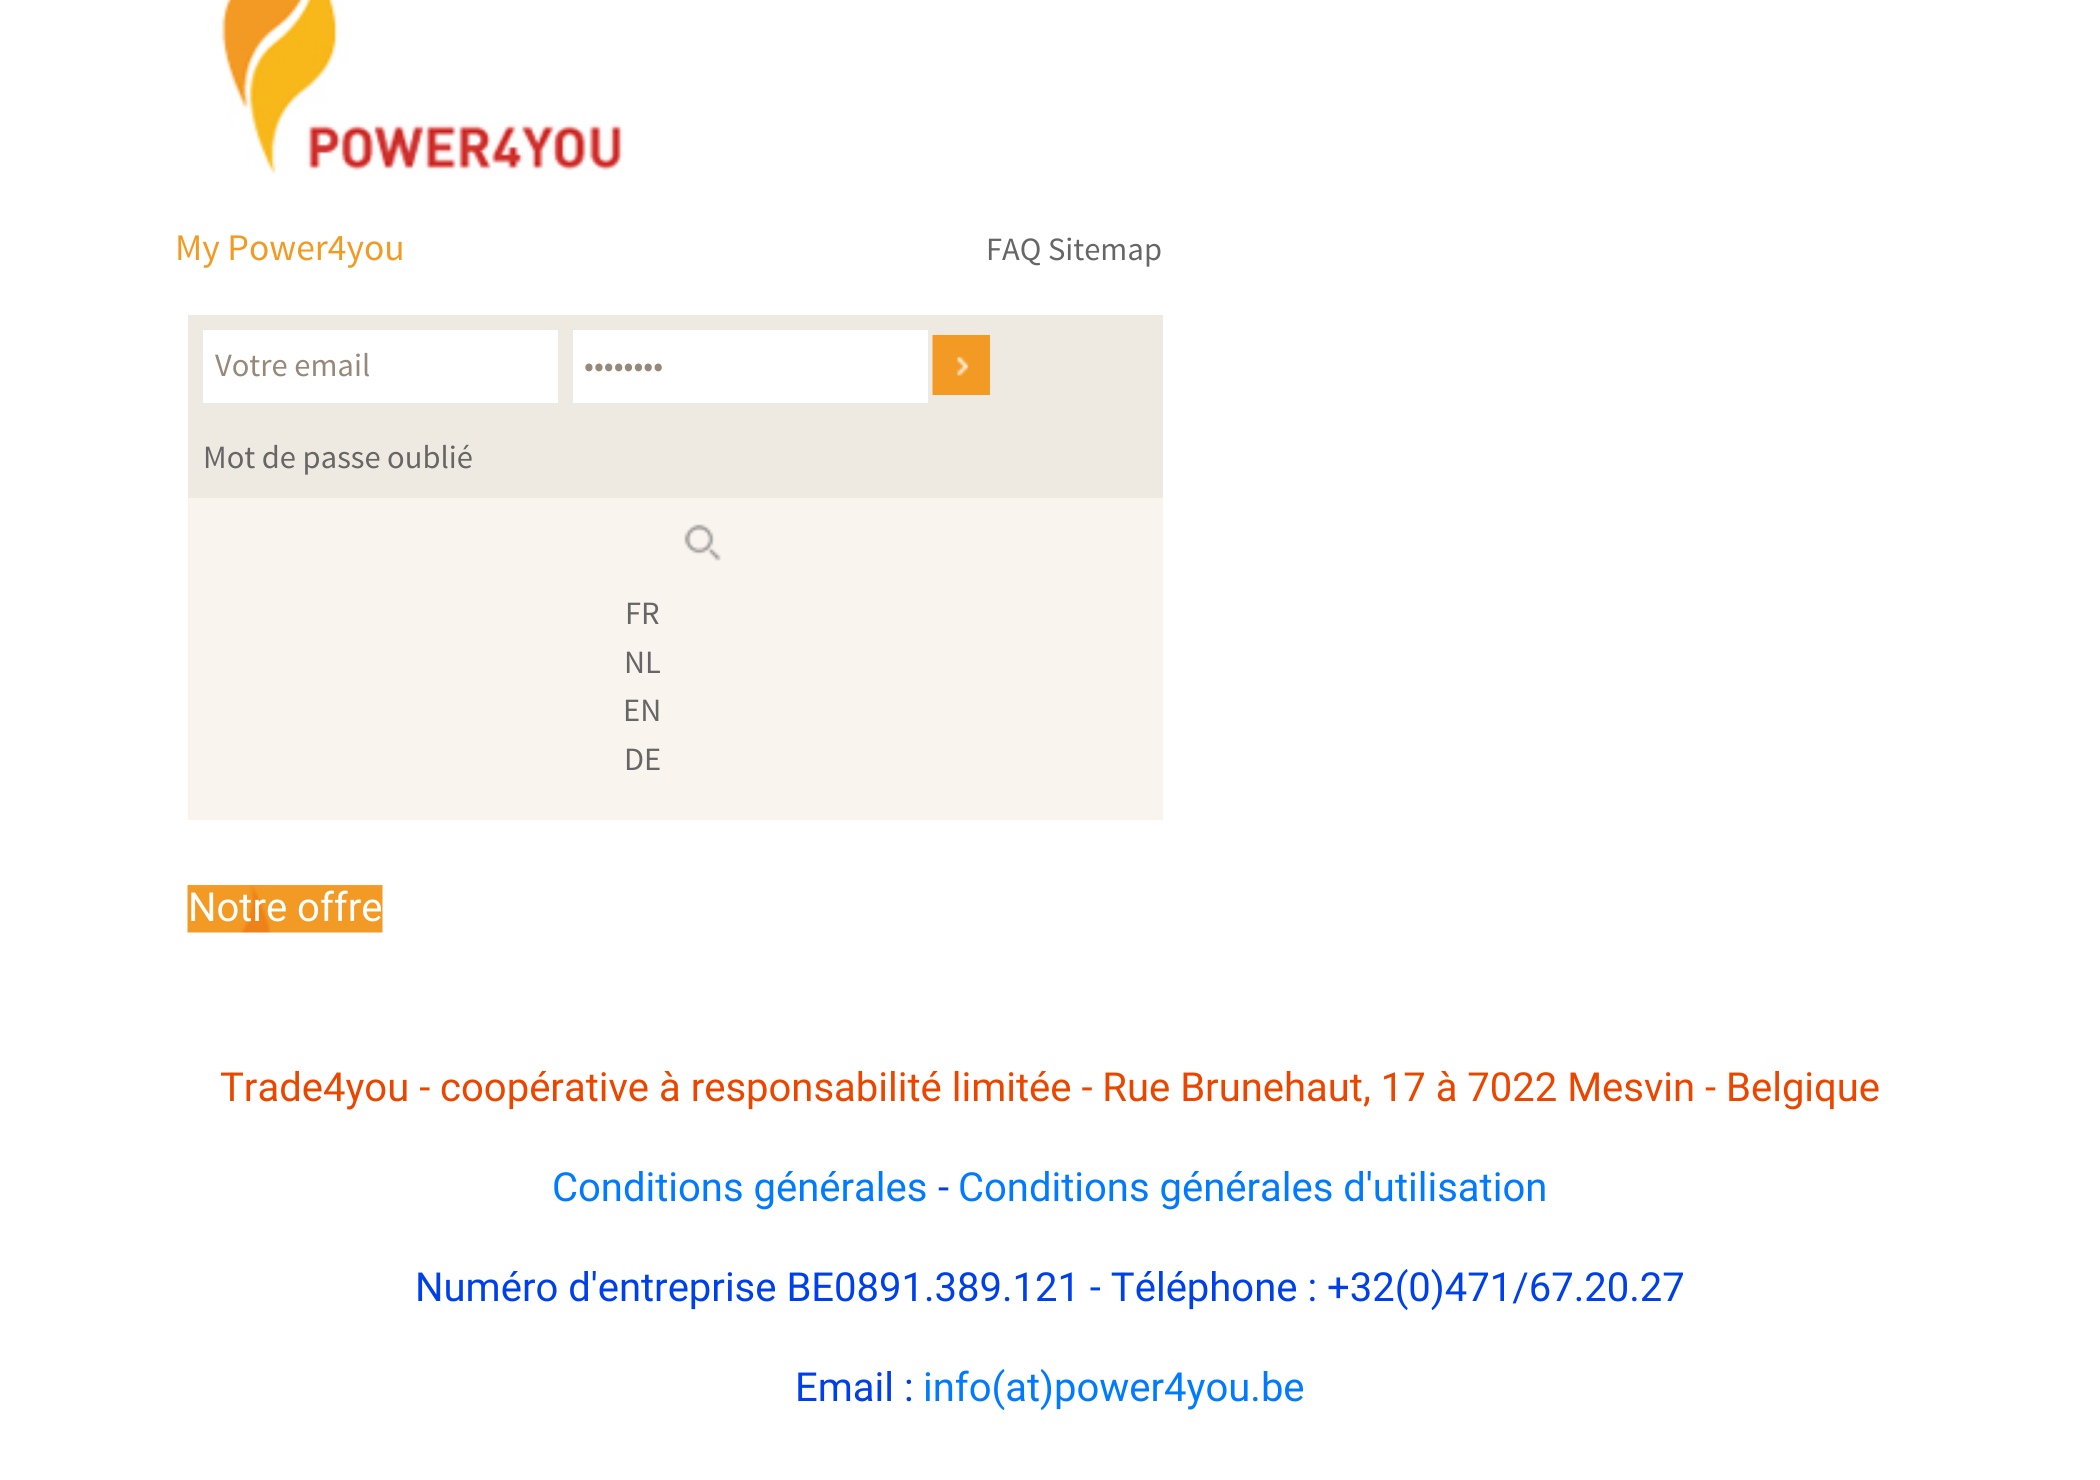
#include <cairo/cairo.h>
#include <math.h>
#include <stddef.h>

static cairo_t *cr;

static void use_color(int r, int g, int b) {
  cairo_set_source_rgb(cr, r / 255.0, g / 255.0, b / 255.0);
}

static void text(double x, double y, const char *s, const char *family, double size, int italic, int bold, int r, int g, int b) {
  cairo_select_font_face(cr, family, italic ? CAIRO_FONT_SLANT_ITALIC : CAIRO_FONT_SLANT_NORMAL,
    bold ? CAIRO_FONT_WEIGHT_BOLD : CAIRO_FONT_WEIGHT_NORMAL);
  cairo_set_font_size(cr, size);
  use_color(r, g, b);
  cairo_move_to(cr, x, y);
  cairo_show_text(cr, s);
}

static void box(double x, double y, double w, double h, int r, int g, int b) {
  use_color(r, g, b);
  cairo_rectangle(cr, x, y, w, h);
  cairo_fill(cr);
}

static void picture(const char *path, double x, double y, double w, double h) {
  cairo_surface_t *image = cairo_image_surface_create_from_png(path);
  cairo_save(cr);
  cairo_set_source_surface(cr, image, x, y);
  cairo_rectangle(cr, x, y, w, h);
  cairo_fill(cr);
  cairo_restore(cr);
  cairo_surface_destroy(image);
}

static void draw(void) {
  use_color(255, 255, 255);
  cairo_paint(cr);
  picture("img_01.png", 221, 0, 402, 175);
  box(188, 315, 975, 183, 238, 234, 225);
  box(203, 330, 355, 73, 255, 255, 255);
  box(573, 330, 355, 73, 255, 255, 255);
  box(969, 335, 21, 60, 243, 154, 36);
  picture("img_02.png", 932, 335, 37, 60);
  box(188, 498, 975, 322, 249, 244, 238);
  picture("img_03.png", 684, 524, 37, 37);
  picture("img_04.png", 187, 885, 196, 48);
  text(175, 260, "My Power4you", "Source Sans Pro", 37.5, 0, 0, 243, 154, 36);
  text(986, 260, "FAQ Sitemap", "Source Sans Pro", 32.5, 0, 0, 102, 102, 102);
  text(215, 376, "Votre email", "Source Sans Pro", 32.5, 0, 0, 150, 137, 121);
  text(584, 376, "••••••••", "Source Sans Pro", 32.5, 0, 0, 150, 137, 121);
  text(203, 468, "Mot de passe oublié", "Source Sans Pro", 32.5, 0, 0, 102, 102, 102);
  text(625, 624, "FR", "Source Sans Pro", 32.5, 0, 0, 102, 102, 102);
  text(624, 673, "NL", "Source Sans Pro", 32.5, 0, 0, 102, 102, 102);
  text(623, 721, "EN", "Source Sans Pro", 32.5, 0, 0, 102, 102, 102);
  text(624, 770, "DE", "Source Sans Pro", 32.5, 0, 0, 102, 102, 102);
  text(188, 921, "Notre offre", "Roboto", 40, 0, 0, 255, 255, 255);
  text(220, 1101, "Trade4you - coopérative à responsabilité limitée - Rue Brunehaut, 17 à 7022 Mesvin - Belgique", "Roboto", 40, 0, 0, 235, 70, 0);
  text(552, 1201, "Conditions générales", "Roboto", 40, 0, 0, 0, 123, 255);
  text(938, 1201, "-", "Roboto", 40, 0, 0, 0, 64, 235);
  text(958, 1201, "Conditions générales d'utilisation", "Roboto", 40, 0, 0, 0, 123, 255);
  text(415, 1301, "Numéro d'entreprise BE0891.389.121 - Téléphone : +32(0)471/67.20.27", "Roboto", 40, 0, 0, 0, 64, 235);
  text(795, 1401, "Email :", "Roboto", 40, 0, 0, 0, 64, 235);
  text(923, 1401, "info(at)power4you.be", "Roboto", 40, 0, 0, 0, 123, 255);
}

int main(void) {
  cairo_surface_t *surface = cairo_image_surface_create(CAIRO_FORMAT_RGB24, 2100, 1480);
  cr = cairo_create(surface);
  cairo_font_options_t *options = cairo_font_options_create();
  cairo_font_options_set_hint_metrics(options, CAIRO_HINT_METRICS_OFF);
  cairo_font_options_set_hint_style(options, CAIRO_HINT_STYLE_NONE);
  cairo_set_font_options(cr, options);
  cairo_set_miter_limit(cr, 4);
  draw();
  cairo_surface_write_to_png(surface, "out.png");
  cairo_font_options_destroy(options);
  cairo_destroy(cr);
  cairo_surface_destroy(surface);
  return 0;
}
